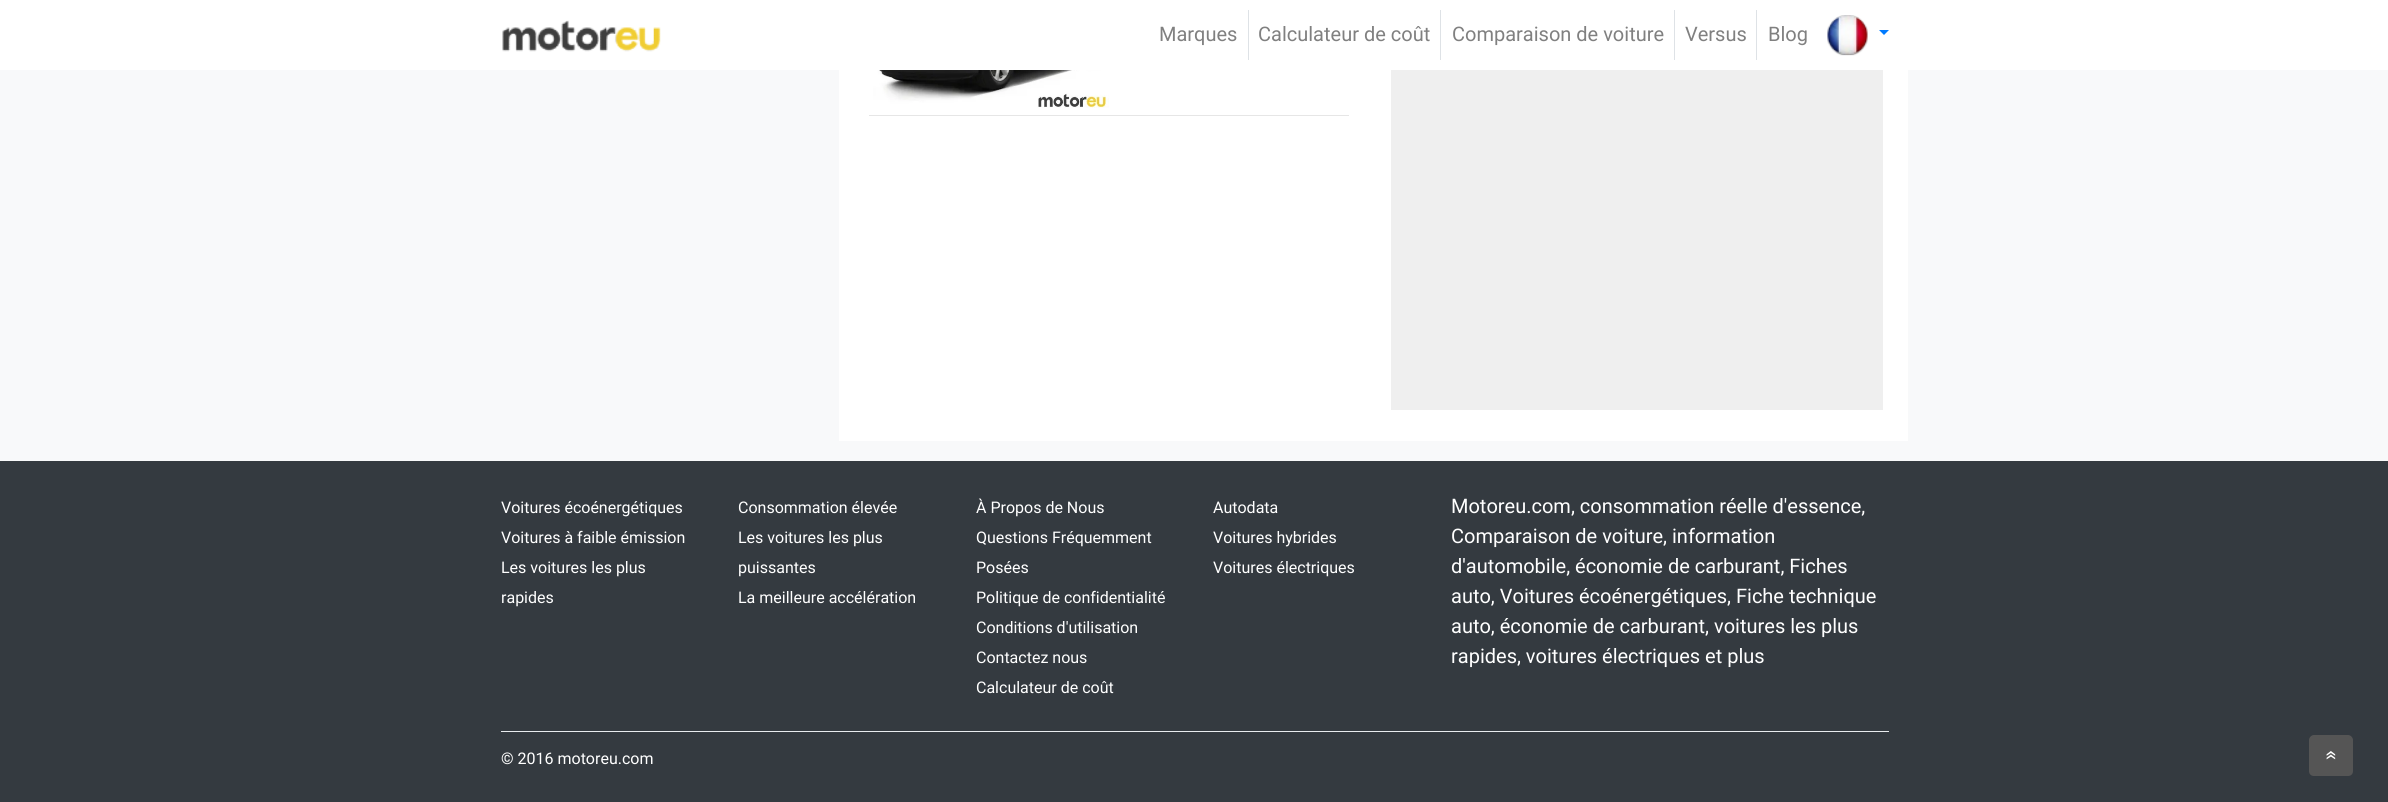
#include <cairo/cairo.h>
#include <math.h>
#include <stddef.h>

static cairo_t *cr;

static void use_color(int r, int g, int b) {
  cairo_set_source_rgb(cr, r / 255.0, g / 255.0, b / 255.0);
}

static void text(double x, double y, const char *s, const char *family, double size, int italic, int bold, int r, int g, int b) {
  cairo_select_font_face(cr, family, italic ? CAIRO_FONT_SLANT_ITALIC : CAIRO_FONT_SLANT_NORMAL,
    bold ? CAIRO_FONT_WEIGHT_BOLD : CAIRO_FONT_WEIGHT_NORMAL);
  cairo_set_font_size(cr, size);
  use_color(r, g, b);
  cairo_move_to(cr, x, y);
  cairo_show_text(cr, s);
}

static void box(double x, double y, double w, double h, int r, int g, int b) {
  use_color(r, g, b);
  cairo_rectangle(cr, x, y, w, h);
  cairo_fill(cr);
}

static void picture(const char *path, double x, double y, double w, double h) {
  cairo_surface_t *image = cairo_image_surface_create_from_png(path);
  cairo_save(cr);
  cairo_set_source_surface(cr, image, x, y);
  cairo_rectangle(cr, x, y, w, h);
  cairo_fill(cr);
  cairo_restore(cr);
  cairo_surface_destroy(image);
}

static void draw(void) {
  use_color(248, 249, 250);
  cairo_paint(cr);
  box(0, 0, 2388, 70, 255, 255, 255);
  picture("img_01.png", 502, 20, 159, 32);
  box(1248, 10, 1, 50, 222, 226, 230);
  box(1440, 10, 1, 50, 222, 226, 230);
  box(1674, 10, 1, 50, 222, 226, 230);
  box(1756, 10, 1, 50, 222, 226, 230);
  picture("img_02.png", 1827, 15, 41, 41);
  use_color(0, 123, 255);
  cairo_new_path(cr);
  cairo_move_to(cr, 1879, 30);
  cairo_line_to(cr, 1889, 30);
  cairo_line_to(cr, 1884, 35);
  cairo_close_path(cr);
  cairo_fill(cr);
  box(839, 70, 1069, 371, 255, 255, 255);
  picture("img_03.png", 873, 70, 236, 38);
  box(869, 115, 480, 1, 230, 230, 230);
  box(1391, 70, 492, 340, 239, 239, 239);
  box(0, 461, 2388, 341, 52, 58, 64);
  box(501, 731, 1388, 1, 233, 236, 239);
  use_color(85, 85, 85);
  cairo_new_path(cr);
  cairo_move_to(cr, 2353, 740);
  cairo_line_to(cr, 2353, 771);
  cairo_curve_to(cr, 2353, 774, 2351, 776, 2348, 776);
  cairo_line_to(cr, 2314, 776);
  cairo_curve_to(cr, 2311, 776, 2309, 774, 2309, 771);
  cairo_line_to(cr, 2309, 740);
  cairo_curve_to(cr, 2309, 738, 2311, 735, 2314, 735);
  cairo_line_to(cr, 2348, 735);
  cairo_curve_to(cr, 2351, 735, 2353, 738, 2353, 740);
  cairo_close_path(cr);
  cairo_fill(cr);
  text(1159, 41, "Marques", "Roboto", 20, 0, 0, 128, 128, 128);
  text(1258, 41, "Calculateur de coût", "Roboto", 20, 0, 0, 128, 128, 128);
  text(1452, 41, "Comparaison de voiture", "Roboto", 20, 0, 0, 128, 128, 128);
  text(1685, 41, "Versus", "Roboto", 20, 0, 0, 128, 128, 128);
  text(1768, 41, "Blog", "Roboto", 20, 0, 0, 128, 128, 128);
  text(501, 513, "Voitures écoénergétiques", "Roboto", 16, 0, 0, 255, 255, 255);
  text(501, 543, "Voitures à faible émission", "Roboto", 16, 0, 0, 255, 255, 255);
  text(501, 573, "Les voitures les plus", "Roboto", 16, 0, 0, 255, 255, 255);
  text(501, 603, "rapides", "Roboto", 16, 0, 0, 255, 255, 255);
  text(738, 513, "Consommation élevée", "Roboto", 16, 0, 0, 255, 255, 255);
  text(738, 543, "Les voitures les plus", "Roboto", 16, 0, 0, 255, 255, 255);
  text(738, 573, "puissantes", "Roboto", 16, 0, 0, 255, 255, 255);
  text(738, 603, "La meilleure accélération", "Roboto", 16, 0, 0, 255, 255, 255);
  text(976, 513, "À Propos de Nous", "Roboto", 16, 0, 0, 255, 255, 255);
  text(976, 543, "Questions Fréquemment", "Roboto", 16, 0, 0, 255, 255, 255);
  text(976, 573, "Posées", "Roboto", 16, 0, 0, 255, 255, 255);
  text(976, 603, "Politique de confidentialité", "Roboto", 16, 0, 0, 255, 255, 255);
  text(976, 633, "Conditions d'utilisation", "Roboto", 16, 0, 0, 255, 255, 255);
  text(976, 663, "Contactez nous", "Roboto", 16, 0, 0, 255, 255, 255);
  text(976, 693, "Calculateur de coût", "Roboto", 16, 0, 0, 255, 255, 255);
  text(1213, 513, "Autodata", "Roboto", 16, 0, 0, 255, 255, 255);
  text(1213, 543, "Voitures hybrides", "Roboto", 16, 0, 0, 255, 255, 255);
  text(1213, 573, "Voitures électriques", "Roboto", 16, 0, 0, 255, 255, 255);
  text(1451, 513, "Motoreu.com, consommation réelle d'essence,", "Roboto", 20, 0, 0, 255, 255, 255);
  text(1451, 543, "Comparaison de voiture, information", "Roboto", 20, 0, 0, 255, 255, 255);
  text(1451, 573, "d'automobile, économie de carburant, Fiches", "Roboto", 20, 0, 0, 255, 255, 255);
  text(1451, 603, "auto, Voitures écoénergétiques, Fiche technique", "Roboto", 20, 0, 0, 255, 255, 255);
  text(1451, 633, "auto, économie de carburant, voitures les plus", "Roboto", 20, 0, 0, 255, 255, 255);
  text(1451, 663, "rapides, voitures électriques et plus", "Roboto", 20, 0, 0, 255, 255, 255);
  text(501, 764, "© 2016 motoreu.com", "Roboto", 16, 0, 0, 255, 255, 255);
  cairo_save(cr);
  cairo_translate(cr, 2325, 750);
  cairo_rotate(cr, 90 * M_PI / 180);
  text(0, 0, "«", "Roboto", 22, 0, 0, 255, 255, 255);
  cairo_restore(cr);
}

int main(void) {
  cairo_surface_t *surface = cairo_image_surface_create(CAIRO_FORMAT_RGB24, 2388, 802);
  cr = cairo_create(surface);
  cairo_font_options_t *options = cairo_font_options_create();
  cairo_font_options_set_hint_metrics(options, CAIRO_HINT_METRICS_OFF);
  cairo_font_options_set_hint_style(options, CAIRO_HINT_STYLE_NONE);
  cairo_set_font_options(cr, options);
  cairo_set_miter_limit(cr, 4);
  draw();
  cairo_surface_write_to_png(surface, "out.png");
  cairo_font_options_destroy(options);
  cairo_destroy(cr);
  cairo_surface_destroy(surface);
  return 0;
}
